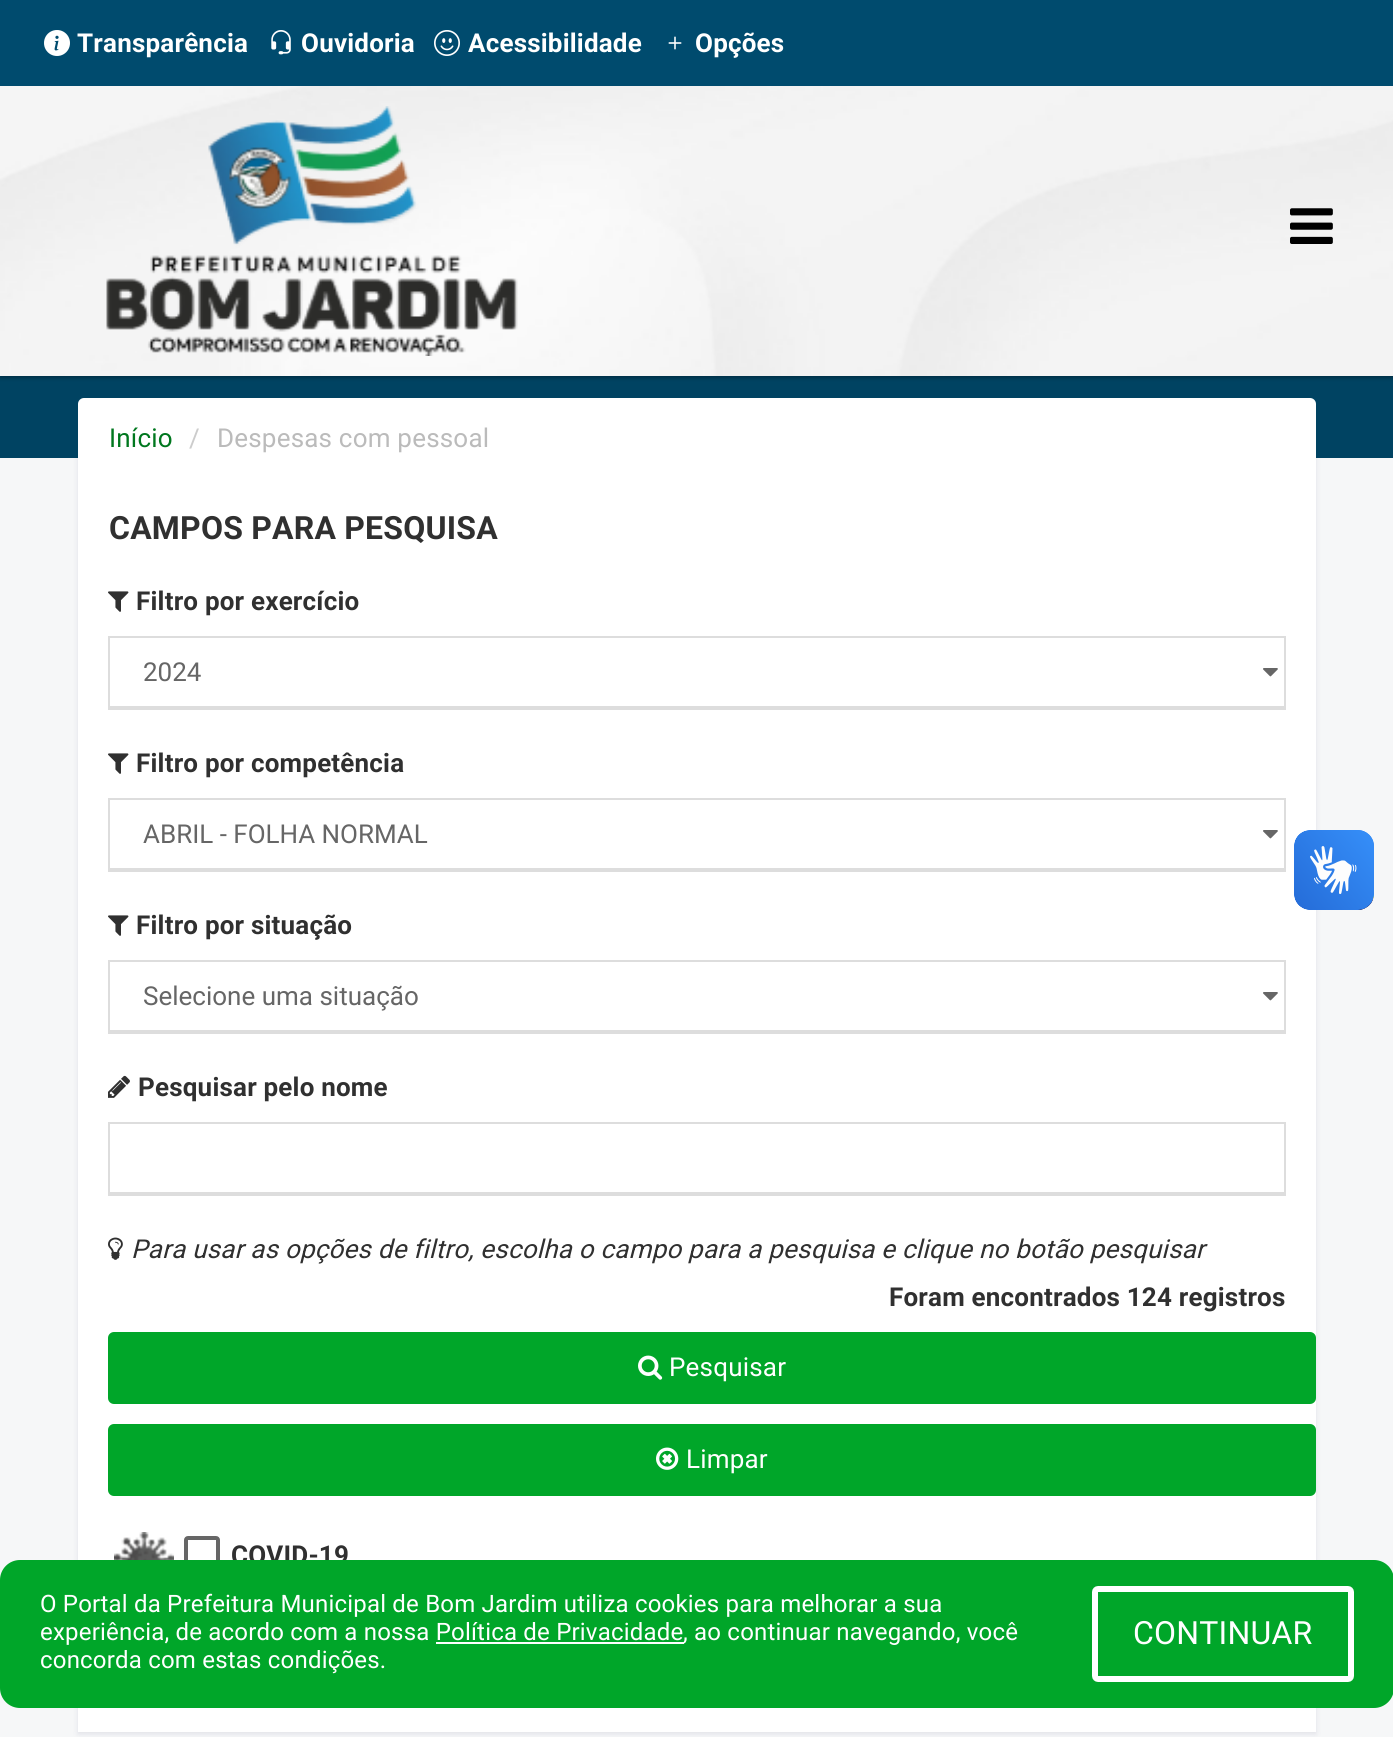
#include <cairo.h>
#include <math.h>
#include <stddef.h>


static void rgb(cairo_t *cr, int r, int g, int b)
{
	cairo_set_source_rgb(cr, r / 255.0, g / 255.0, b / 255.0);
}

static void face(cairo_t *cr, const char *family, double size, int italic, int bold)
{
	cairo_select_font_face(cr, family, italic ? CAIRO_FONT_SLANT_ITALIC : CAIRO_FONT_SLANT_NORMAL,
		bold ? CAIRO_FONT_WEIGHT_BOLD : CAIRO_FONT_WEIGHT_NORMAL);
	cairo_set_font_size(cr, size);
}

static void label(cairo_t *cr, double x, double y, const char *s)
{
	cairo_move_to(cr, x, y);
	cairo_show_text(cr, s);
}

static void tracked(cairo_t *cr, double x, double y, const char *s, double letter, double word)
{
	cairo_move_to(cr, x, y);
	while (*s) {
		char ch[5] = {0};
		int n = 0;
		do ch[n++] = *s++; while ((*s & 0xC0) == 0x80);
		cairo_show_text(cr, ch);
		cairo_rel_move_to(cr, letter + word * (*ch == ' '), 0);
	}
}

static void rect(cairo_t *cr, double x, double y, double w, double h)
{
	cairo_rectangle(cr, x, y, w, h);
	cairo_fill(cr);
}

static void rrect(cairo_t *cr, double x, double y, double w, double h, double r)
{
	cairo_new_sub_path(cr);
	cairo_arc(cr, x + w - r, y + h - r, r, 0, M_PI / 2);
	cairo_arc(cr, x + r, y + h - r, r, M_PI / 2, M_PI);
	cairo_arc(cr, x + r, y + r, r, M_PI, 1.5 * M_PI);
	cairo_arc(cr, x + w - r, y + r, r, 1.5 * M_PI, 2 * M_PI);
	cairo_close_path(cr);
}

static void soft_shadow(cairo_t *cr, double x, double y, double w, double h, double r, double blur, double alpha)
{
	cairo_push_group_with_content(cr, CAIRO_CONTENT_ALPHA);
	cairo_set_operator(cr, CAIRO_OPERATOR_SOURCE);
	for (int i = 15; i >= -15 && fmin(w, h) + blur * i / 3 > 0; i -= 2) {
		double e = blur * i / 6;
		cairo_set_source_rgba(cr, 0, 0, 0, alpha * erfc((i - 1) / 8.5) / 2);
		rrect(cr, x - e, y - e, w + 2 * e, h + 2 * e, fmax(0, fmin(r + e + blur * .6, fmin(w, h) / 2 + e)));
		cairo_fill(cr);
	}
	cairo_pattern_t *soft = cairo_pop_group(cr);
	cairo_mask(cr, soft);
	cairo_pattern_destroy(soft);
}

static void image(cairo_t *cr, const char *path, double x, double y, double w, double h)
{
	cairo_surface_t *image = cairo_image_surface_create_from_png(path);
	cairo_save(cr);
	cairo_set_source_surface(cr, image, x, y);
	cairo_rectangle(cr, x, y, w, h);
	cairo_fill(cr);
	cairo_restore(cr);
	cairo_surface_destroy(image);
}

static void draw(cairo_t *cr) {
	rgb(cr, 246, 247, 248);
	cairo_paint(cr);
	rgb(cr, 3, 0, 71);
	soft_shadow(cr, 78, 400, 1238, 1334, 0, 3, 0.09);
	rgb(cr, 0, 67, 98);
	rect(cr, 0, 376, 1393, 82);
	rgb(cr, 0, 0, 0);
	soft_shadow(cr, 0, 2, 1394, 376, 0, 2, 0.3);
	image(cr, "image0.png", 0, 86, 1393, 290);
	rgb(cr, 0, 75, 110);
	rect(cr, 0, 0, 1393, 86);
	image(cr, "image1.png", 44, 30, 26, 26);
	face(cr, "Roboto", 26, 0, 1);
	rgb(cr, 255, 255, 255);
	tracked(cr, 77, 52, "Transparência", 0.2, 0);
	image(cr, "image2.png", 271, 30, 20, 25);
	tracked(cr, 301, 52, "Ouvidoria", 0.2, 0);
	image(cr, "image3.png", 434, 30, 26, 26);
	tracked(cr, 468, 52, "Acessibilidade", 0.2, 0);
	image(cr, "image4.png", 668, 36, 14, 14);
	tracked(cr, 695, 52, "Opções", 0.2, 0);
	image(cr, "image5.png", 106, 106, 412, 250);
	image(cr, "image6.png", 1290, 208, 43, 36);
	rect(cr, 78, 472, 1238, 1260);
	rrect(cr, 78, 398, 1238, 80, 6);
	cairo_fill(cr);
	face(cr, "Roboto", 26, 0, 0);
	rgb(cr, 0, 119, 30);
	tracked(cr, 109, 447, "Início", 0.2, 0);
	rgb(cr, 204, 204, 204);
	tracked(cr, 189, 447, "/", 0.2, 0);
	rgb(cr, 187, 187, 187);
	tracked(cr, 217, 447, "Despesas com pessoal", 0.2, 0);
	face(cr, "Roboto", 32, 0, 1);
	rgb(cr, 48, 48, 48);
	tracked(cr, 109, 539, "CAMPOS PARA PESQUISA", 0.2, 0);
	image(cr, "image7.png", 108, 591, 21, 21);
	face(cr, "Roboto", 26, 0, 1);
	tracked(cr, 136, 610, "Filtro por exercício", 0.2, 0);
	image(cr, "image8.png", 1263, 668, 15, 9);
	rgb(cr, 221, 221, 221);
	rect(cr, 110, 706, 1174, 2);
	cairo_rectangle(cr, 109, 637, 1176, 72);
	cairo_stroke(cr);
	face(cr, "Roboto", 26, 0, 0);
	rgb(cr, 102, 102, 102);
	label(cr, 143, 681, "2024");
	image(cr, "image7.png", 108, 753, 21, 21);
	face(cr, "Roboto", 26, 0, 1);
	rgb(cr, 48, 48, 48);
	tracked(cr, 136, 772, "Filtro por competência", 0.2, 0);
	image(cr, "image8.png", 1263, 830, 15, 9);
	rgb(cr, 221, 221, 221);
	rect(cr, 110, 868, 1174, 2);
	cairo_rectangle(cr, 109, 799, 1176, 72);
	cairo_stroke(cr);
	face(cr, "Roboto", 26, 0, 0);
	rgb(cr, 102, 102, 102);
	label(cr, 143, 843, "ABRIL - FOLHA NORMAL");
	image(cr, "image7.png", 108, 915, 21, 21);
	face(cr, "Roboto", 26, 0, 1);
	rgb(cr, 48, 48, 48);
	tracked(cr, 136, 934, "Filtro por situação", 0.2, 0);
	image(cr, "image8.png", 1263, 992, 15, 9);
	rgb(cr, 221, 221, 221);
	rect(cr, 110, 1030, 1174, 2);
	cairo_rectangle(cr, 109, 961, 1176, 72);
	cairo_stroke(cr);
	face(cr, "Roboto", 26, 0, 0);
	rgb(cr, 102, 102, 102);
	label(cr, 143, 1005, "Selecione uma situação");
	image(cr, "image9.png", 108, 1075, 22, 23);
	face(cr, "Roboto", 26, 0, 1);
	rgb(cr, 48, 48, 48);
	tracked(cr, 138, 1096, "Pesquisar pelo nome", 0.2, 0);
	rgb(cr, 221, 221, 221);
	rect(cr, 110, 1192, 1174, 2);
	cairo_rectangle(cr, 109, 1123, 1176, 72);
	cairo_stroke(cr);
	image(cr, "image10.png", 108, 1237, 15, 23);
	face(cr, "Roboto", 26, 1, 0);
	rgb(cr, 48, 48, 48);
	tracked(cr, 131, 1258, "Para usar as opções de filtro, escolha o campo para a pesquisa e clique no botão pesquisar", 0.2, 0);
	face(cr, "Roboto", 26, 0, 1);
	tracked(cr, 889, 1306, "Foram encontrados 124 registros", 0.2, 0);
	rgb(cr, 0, 166, 41);
	rrect(cr, 108, 1332, 1208, 72, 6);
	cairo_fill(cr);
	image(cr, "image11.png", 638, 1355, 25, 25);
	face(cr, "Roboto", 26, 0, 0);
	rgb(cr, 255, 255, 255);
	tracked(cr, 669, 1376, "Pesquisar", 0.2, 0);
	rgb(cr, 0, 166, 41);
	rrect(cr, 108, 1424, 1208, 72, 6);
	cairo_fill(cr);
	image(cr, "image12.png", 656, 1447, 23, 23);
	rgb(cr, 255, 255, 255);
	tracked(cr, 686, 1468, "Limpar", 0.2, 0);
	image(cr, "image13.png", 114, 1532, 60, 28);
	rrect(cr, 186, 1538, 32, 32, 2);
	rgb(cr, 102, 102, 102);
	cairo_set_line_width(cr, 4);
	cairo_stroke(cr);
	face(cr, "Roboto", 26, 0, 1);
	rgb(cr, 48, 48, 48);
	tracked(cr, 231, 1564, "COVID-19", 0.2, 0);
	image(cr, "image14.png", 1294, 830, 80, 80);
	image(cr, "image15.png", 1294, 830, 80, 80);
	rgb(cr, 0, 166, 41);
	rrect(cr, 0, 1560, 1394, 148, 20);
	cairo_fill(cr);
	face(cr, "Roboto", 24, 0, 0);
	rgb(cr, 255, 255, 255);
	tracked(cr, 40, 1612, "O Portal da Prefeitura Municipal de Bom Jardim utiliza cookies para melhorar a sua", 0.2, 0);
	tracked(cr, 40, 1640, "experiência, de acordo com a nossa Política de Privacidade", 0.2, 0);
	rect(cr, 436, 1642, 248, 2);
	tracked(cr, 683, 1640, ", ao continuar navegando, você", 0.2, 0);
	tracked(cr, 40, 1668, "concorda com estas condições.", 0.2, 0);
	rrect(cr, 1095, 1589, 256, 90, 3);
	cairo_set_line_width(cr, 6);
	cairo_stroke(cr);
	face(cr, "Roboto", 32, 0, 0);
	tracked(cr, 1133, 1644, "CONTINUAR", 0.2, 0);
}

int main(void) {
	cairo_surface_t *surface = cairo_image_surface_create(CAIRO_FORMAT_RGB24, 1393, 1737);
	cairo_t *cr = cairo_create(surface);
	cairo_font_options_t *options = cairo_font_options_create();
	cairo_font_options_set_hint_metrics(options, CAIRO_HINT_METRICS_OFF);
	cairo_font_options_set_hint_style(options, CAIRO_HINT_STYLE_NONE);
	cairo_set_font_options(cr, options);
	cairo_set_miter_limit(cr, 4);
	draw(cr);
	cairo_surface_write_to_png(surface, "render.png");
	cairo_font_options_destroy(options);
	cairo_destroy(cr);
	cairo_surface_destroy(surface);
	return 0;
}
